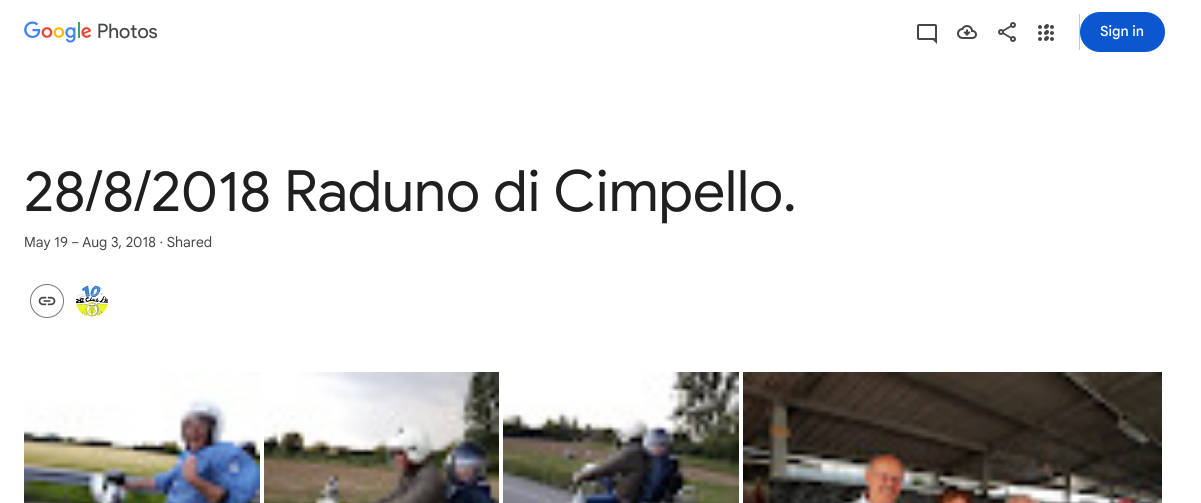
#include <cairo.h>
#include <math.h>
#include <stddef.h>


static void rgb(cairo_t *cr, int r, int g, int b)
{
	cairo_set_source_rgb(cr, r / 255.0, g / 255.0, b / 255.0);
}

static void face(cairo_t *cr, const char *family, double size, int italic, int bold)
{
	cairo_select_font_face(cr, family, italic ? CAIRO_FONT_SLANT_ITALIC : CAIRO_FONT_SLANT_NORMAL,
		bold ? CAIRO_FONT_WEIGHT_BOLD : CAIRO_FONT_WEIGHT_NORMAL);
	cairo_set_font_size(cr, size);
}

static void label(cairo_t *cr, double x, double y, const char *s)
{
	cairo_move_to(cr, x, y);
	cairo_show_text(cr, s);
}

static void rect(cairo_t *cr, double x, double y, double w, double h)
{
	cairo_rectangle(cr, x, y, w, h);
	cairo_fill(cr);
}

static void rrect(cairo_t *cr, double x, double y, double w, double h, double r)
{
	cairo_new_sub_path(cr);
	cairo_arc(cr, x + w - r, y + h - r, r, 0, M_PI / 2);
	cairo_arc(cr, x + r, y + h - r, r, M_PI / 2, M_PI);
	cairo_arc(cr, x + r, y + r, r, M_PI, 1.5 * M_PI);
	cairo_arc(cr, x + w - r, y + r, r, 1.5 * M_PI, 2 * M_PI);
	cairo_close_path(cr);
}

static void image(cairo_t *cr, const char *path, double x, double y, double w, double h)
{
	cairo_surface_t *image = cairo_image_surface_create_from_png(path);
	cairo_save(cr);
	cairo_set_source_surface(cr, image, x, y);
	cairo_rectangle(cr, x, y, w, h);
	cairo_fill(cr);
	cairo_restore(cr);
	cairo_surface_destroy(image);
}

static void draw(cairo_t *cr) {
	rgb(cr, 255, 255, 255);
	cairo_paint(cr);
	image(cr, "image0.png", 24, 21, 68, 22);
	face(cr, "Product Sans", 20, 0, 0);
	rgb(cr, 68, 71, 70);
	label(cr, 97, 38, "Photos");
	image(cr, "image1.png", 917, 24, 20, 20);
	image(cr, "image2.png", 957, 25, 20, 14);
	image(cr, "image3.png", 998, 22, 18, 20);
	image(cr, "image4.png", 1045, 24, 4, 16);
	rgb(cr, 196, 199, 197);
	rect(cr, 1079, 14, 1, 36);
	face(cr, "Google Sans", 57, 0, 0);
	rgb(cr, 31, 31, 31);
	label(cr, 24, 211, "28/8/2018 Raduno di Cimpello.");
	face(cr, "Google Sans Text", 14, 0, 0);
	rgb(cr, 68, 71, 70);
	label(cr, 24, 247, "May 19 – Aug 3, 2018 · Shared");
	cairo_new_path(cr);
	cairo_arc(cr, 47, 301, 16.5, 0, 2 * M_PI);
	rgb(cr, 116, 119, 117);
	cairo_set_line_width(cr, 1);
	cairo_stroke(cr);
	image(cr, "image5.png", 38, 296, 18, 10);
	image(cr, "image6.png", 76, 285, 32, 32);
	image(cr, "image7.png", 24, 372, 236, 131);
	image(cr, "image8.png", 264, 372, 235, 131);
	image(cr, "image9.png", 503, 372, 236, 131);
	image(cr, "image10.png", 743, 372, 419, 131);
	image(cr, "image11.png", 1038, 25, 16, 16);
	rgb(cr, 11, 87, 208);
	rrect(cr, 1080, 12, 85, 40, 20);
	cairo_fill(cr);
	face(cr, "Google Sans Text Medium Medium", 14, 0, 0);
	rgb(cr, 255, 255, 255);
	label(cr, 1100, 36, "Sign in");
}

int main(void) {
	cairo_surface_t *surface = cairo_image_surface_create(CAIRO_FORMAT_RGB24, 1201, 503);
	cairo_t *cr = cairo_create(surface);
	cairo_font_options_t *options = cairo_font_options_create();
	cairo_font_options_set_hint_metrics(options, CAIRO_HINT_METRICS_OFF);
	cairo_font_options_set_hint_style(options, CAIRO_HINT_STYLE_NONE);
	cairo_set_font_options(cr, options);
	cairo_set_miter_limit(cr, 4);
	draw(cr);
	cairo_surface_write_to_png(surface, "render.png");
	cairo_font_options_destroy(options);
	cairo_destroy(cr);
	cairo_surface_destroy(surface);
	return 0;
}
